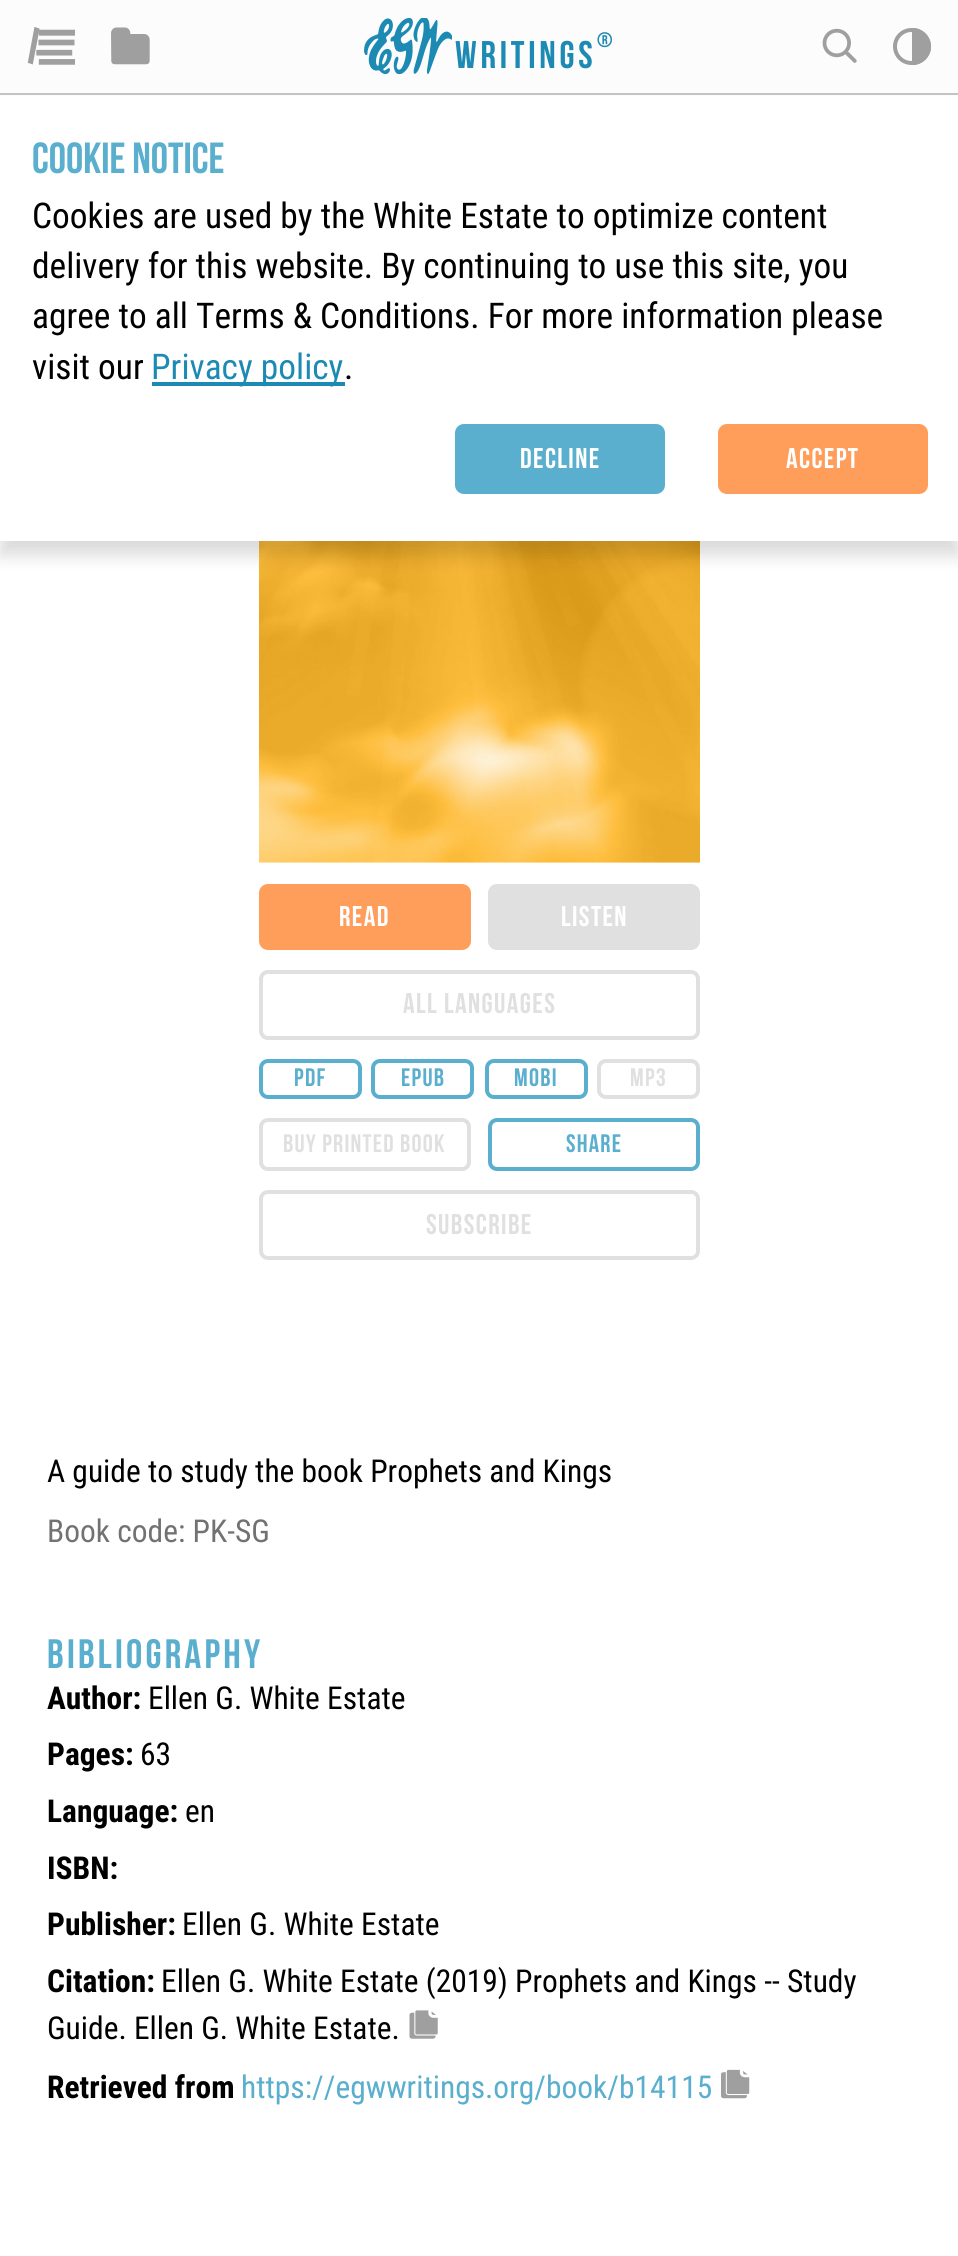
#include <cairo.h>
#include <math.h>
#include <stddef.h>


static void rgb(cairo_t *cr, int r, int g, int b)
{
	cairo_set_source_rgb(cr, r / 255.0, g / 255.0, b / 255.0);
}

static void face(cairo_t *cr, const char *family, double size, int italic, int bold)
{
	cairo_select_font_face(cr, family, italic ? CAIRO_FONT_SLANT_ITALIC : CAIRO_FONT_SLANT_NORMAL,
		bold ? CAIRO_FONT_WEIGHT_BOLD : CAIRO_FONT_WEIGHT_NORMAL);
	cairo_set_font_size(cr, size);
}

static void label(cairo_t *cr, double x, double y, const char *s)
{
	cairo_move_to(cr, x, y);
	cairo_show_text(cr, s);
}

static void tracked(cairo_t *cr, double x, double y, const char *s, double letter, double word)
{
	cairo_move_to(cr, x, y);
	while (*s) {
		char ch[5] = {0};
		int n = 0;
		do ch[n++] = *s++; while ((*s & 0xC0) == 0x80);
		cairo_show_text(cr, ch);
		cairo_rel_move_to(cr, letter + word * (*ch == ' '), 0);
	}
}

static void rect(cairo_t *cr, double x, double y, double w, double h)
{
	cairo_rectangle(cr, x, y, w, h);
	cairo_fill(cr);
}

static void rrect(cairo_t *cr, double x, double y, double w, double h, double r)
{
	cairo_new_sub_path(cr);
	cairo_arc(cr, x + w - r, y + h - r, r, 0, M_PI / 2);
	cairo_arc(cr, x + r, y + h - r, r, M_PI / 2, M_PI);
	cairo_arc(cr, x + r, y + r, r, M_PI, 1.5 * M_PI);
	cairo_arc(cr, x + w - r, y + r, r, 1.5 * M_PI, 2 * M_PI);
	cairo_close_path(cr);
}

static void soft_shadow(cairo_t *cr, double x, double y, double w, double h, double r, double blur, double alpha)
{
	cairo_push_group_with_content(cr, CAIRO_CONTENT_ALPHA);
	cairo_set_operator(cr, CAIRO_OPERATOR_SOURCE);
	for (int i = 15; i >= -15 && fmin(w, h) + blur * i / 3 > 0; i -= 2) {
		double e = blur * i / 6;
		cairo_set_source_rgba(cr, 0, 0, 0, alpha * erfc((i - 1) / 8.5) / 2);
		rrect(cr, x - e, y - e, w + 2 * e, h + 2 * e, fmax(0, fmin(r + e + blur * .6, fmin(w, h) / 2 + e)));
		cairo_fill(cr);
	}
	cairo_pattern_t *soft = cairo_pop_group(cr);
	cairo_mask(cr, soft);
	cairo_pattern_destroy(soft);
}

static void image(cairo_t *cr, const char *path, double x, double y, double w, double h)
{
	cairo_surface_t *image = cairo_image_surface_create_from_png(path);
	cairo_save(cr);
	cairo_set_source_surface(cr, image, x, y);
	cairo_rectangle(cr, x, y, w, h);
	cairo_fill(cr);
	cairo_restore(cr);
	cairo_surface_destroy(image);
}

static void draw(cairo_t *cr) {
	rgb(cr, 255, 255, 255);
	cairo_paint(cr);
	rgb(cr, 252, 252, 252);
	rect(cr, 0, 0, 958, 93);
	rgb(cr, 196, 196, 196);
	rect(cr, 0, 93, 958, 2);
	image(cr, "image0.png", 27, 27, 48, 38);
	image(cr, "image1.png", 111, 27, 39, 38);
	image(cr, "image2.png", 364, 18, 88, 57);
	face(cr, "Bebas Neue", 38.5, 0, 1);
	rgb(cr, 28, 138, 179);
	tracked(cr, 455, 68, "writings", 3.75, 0);
	face(cr, "Bebas Neue", 21, 0, 1);
	tracked(cr, 597, 47, "®", 2, 0);
	image(cr, "image3.png", 822, 28, 35, 35);
	rrect(cr, 895, 30, 34, 33, 16.5);
	rgb(cr, 159, 159, 159);
	cairo_set_line_width(cr, 4);
	cairo_stroke(cr);
	cairo_new_path(cr);
	cairo_move_to(cr, 912, 28);
	cairo_line_to(cr, 912.5, 28);
	cairo_curve_to(cr, 922.5, 28, 931, 36.5, 931, 46.5);
	cairo_curve_to(cr, 931, 56.5, 922.5, 65, 912.5, 65);
	cairo_line_to(cr, 912, 65);
	cairo_close_path(cr);
	cairo_fill(cr);
	image(cr, "image4.png", 259, 541, 441, 322);
	rgb(cr, 0, 0, 0);
	soft_shadow(cr, 0, 109, 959, 446, 0, 9, 0.15);
	rgb(cr, 255, 255, 255);
	rect(cr, 0, 96, 958, 445);
	face(cr, "Bebas Neue", 43.5, 0, 1);
	rgb(cr, 90, 174, 206);
	label(cr, 32, 173, "Cookie Notice");
	face(cr, "Roboto Condensed", 35.4, 0, 0);
	rgb(cr, 0, 0, 0);
	label(cr, 32, 228, "Cookies are used by the White Estate to optimize content");
	label(cr, 32, 278, "delivery for this website. By continuing to use this site, you");
	label(cr, 32, 328, "agree to all Terms & Conditions. For more information please");
	label(cr, 32, 379, "visit our");
	rgb(cr, 28, 138, 179);
	rect(cr, 152, 382, 193, 4);
	label(cr, 151, 379, "Privacy policy");
	rgb(cr, 0, 0, 0);
	label(cr, 344, 379, ".");
	rgb(cr, 90, 174, 206);
	rrect(cr, 456, 425, 208, 68, 8);
	cairo_fill_preserve(cr);
	cairo_set_line_width(cr, 2);
	cairo_stroke(cr);
	face(cr, "Bebas Neue", 28.5, 0, 1);
	rgb(cr, 255, 255, 255);
	tracked(cr, 520, 468, "Decline", 1.4, 0);
	rgb(cr, 255, 157, 91);
	rrect(cr, 719, 425, 208, 68, 8);
	cairo_fill_preserve(cr);
	cairo_stroke(cr);
	rgb(cr, 255, 255, 255);
	tracked(cr, 786, 468, "Accept", 1.4, 0);
	rgb(cr, 255, 157, 91);
	rrect(cr, 260, 885, 210, 64, 8);
	cairo_fill_preserve(cr);
	cairo_stroke(cr);
	rgb(cr, 255, 255, 255);
	tracked(cr, 339, 926, "Read", 1.4, 0);
	rgb(cr, 224, 224, 224);
	rrect(cr, 489, 885, 210, 64, 8);
	cairo_fill_preserve(cr);
	cairo_stroke(cr);
	rgb(cr, 255, 255, 255);
	tracked(cr, 561, 926, "Listen", 1.4, 0);
	rrect(cr, 261, 972, 437, 66, 7);
	rgb(cr, 224, 224, 224);
	cairo_set_line_width(cr, 4);
	cairo_stroke(cr);
	tracked(cr, 403, 1013, "All languages", 1.4, 0);
	rrect(cr, 261, 1061, 99, 36, 7);
	rgb(cr, 90, 174, 206);
	cairo_stroke(cr);
	face(cr, "Bebas Neue", 25.25, 0, 1);
	tracked(cr, 294, 1086, "PDF", 1.25, 0);
	rrect(cr, 373, 1061, 99, 36, 7);
	cairo_stroke(cr);
	tracked(cr, 401, 1086, "ePub", 1.25, 0);
	rrect(cr, 487, 1061, 99, 36, 7);
	cairo_stroke(cr);
	tracked(cr, 514, 1086, "mobi", 1.25, 0);
	rrect(cr, 599, 1061, 99, 36, 7);
	rgb(cr, 224, 224, 224);
	cairo_stroke(cr);
	tracked(cr, 630, 1086, "MP3", 1.25, 0);
	rrect(cr, 261, 1120, 208, 49, 7);
	cairo_stroke(cr);
	tracked(cr, 283, 1152, "buy printed book", 1.25, 0);
	rrect(cr, 490, 1120, 208, 49, 7);
	rgb(cr, 90, 174, 206);
	cairo_stroke(cr);
	tracked(cr, 566, 1152, "Share", 1.25, 0);
	rrect(cr, 261, 1192, 437, 66, 7);
	rgb(cr, 224, 224, 224);
	cairo_stroke(cr);
	face(cr, "Bebas Neue", 28.5, 0, 1);
	tracked(cr, 426, 1234, "Subscribe", 1.4, 0);
	face(cr, "Roboto Condensed", 31.5, 0, 0);
	rgb(cr, 0, 0, 0);
	label(cr, 47, 1482, "A guide to study the book Prophets and Kings");
	rgb(cr, 114, 114, 114);
	label(cr, 47, 1542, "Book code: PK-SG");
	face(cr, "Bebas Neue", 41, 0, 1);
	rgb(cr, 90, 174, 206);
	tracked(cr, 47, 1668, "BIBLIOGRAPHY", 3.25, 0);
	face(cr, "Roboto Condensed", 31.5, 0, 1);
	rgb(cr, 0, 0, 0);
	label(cr, 47, 1709, "Author:");
	face(cr, "Roboto Condensed", 31.5, 0, 0);
	label(cr, 148, 1709, "Ellen G. White Estate");
	face(cr, "Roboto Condensed", 31.5, 0, 1);
	label(cr, 47, 1765, "Pages:");
	face(cr, "Roboto Condensed", 31.5, 0, 0);
	label(cr, 140, 1765, "63");
	face(cr, "Roboto Condensed", 31.5, 0, 1);
	label(cr, 47, 1822, "Language:");
	face(cr, "Roboto Condensed", 31.5, 0, 0);
	label(cr, 185, 1822, "en");
	face(cr, "Roboto Condensed", 31.5, 0, 1);
	label(cr, 47, 1879, "ISBN:");
	label(cr, 47, 1935, "Publisher:");
	face(cr, "Roboto Condensed", 31.5, 0, 0);
	label(cr, 182, 1935, "Ellen G. White Estate");
	face(cr, "Roboto Condensed", 31.5, 0, 1);
	label(cr, 47, 1992, "Citation:");
	face(cr, "Roboto Condensed", 31.5, 0, 0);
	label(cr, 161, 1992, "Ellen G. White Estate (2019) Prophets and Kings -- Study");
	label(cr, 47, 2039, "Guide. Ellen G. White Estate.");
	image(cr, "image5.png", 409, 2010, 29, 29);
	face(cr, "Roboto Condensed", 31.5, 0, 1);
	label(cr, 47, 2098, "Retrieved from");
	face(cr, "Roboto Condensed", 31.5, 0, 0);
	rgb(cr, 90, 174, 206);
	label(cr, 241, 2098, "https://egwwritings.org/book/b14115");
	image(cr, "image6.png", 721, 2069, 29, 30);
}

int main(void) {
	cairo_surface_t *surface = cairo_image_surface_create(CAIRO_FORMAT_RGB24, 958, 2256);
	cairo_t *cr = cairo_create(surface);
	cairo_font_options_t *options = cairo_font_options_create();
	cairo_font_options_set_hint_metrics(options, CAIRO_HINT_METRICS_OFF);
	cairo_font_options_set_hint_style(options, CAIRO_HINT_STYLE_NONE);
	cairo_set_font_options(cr, options);
	cairo_set_miter_limit(cr, 4);
	draw(cr);
	cairo_surface_write_to_png(surface, "render.png");
	cairo_font_options_destroy(options);
	cairo_destroy(cr);
	cairo_surface_destroy(surface);
	return 0;
}
